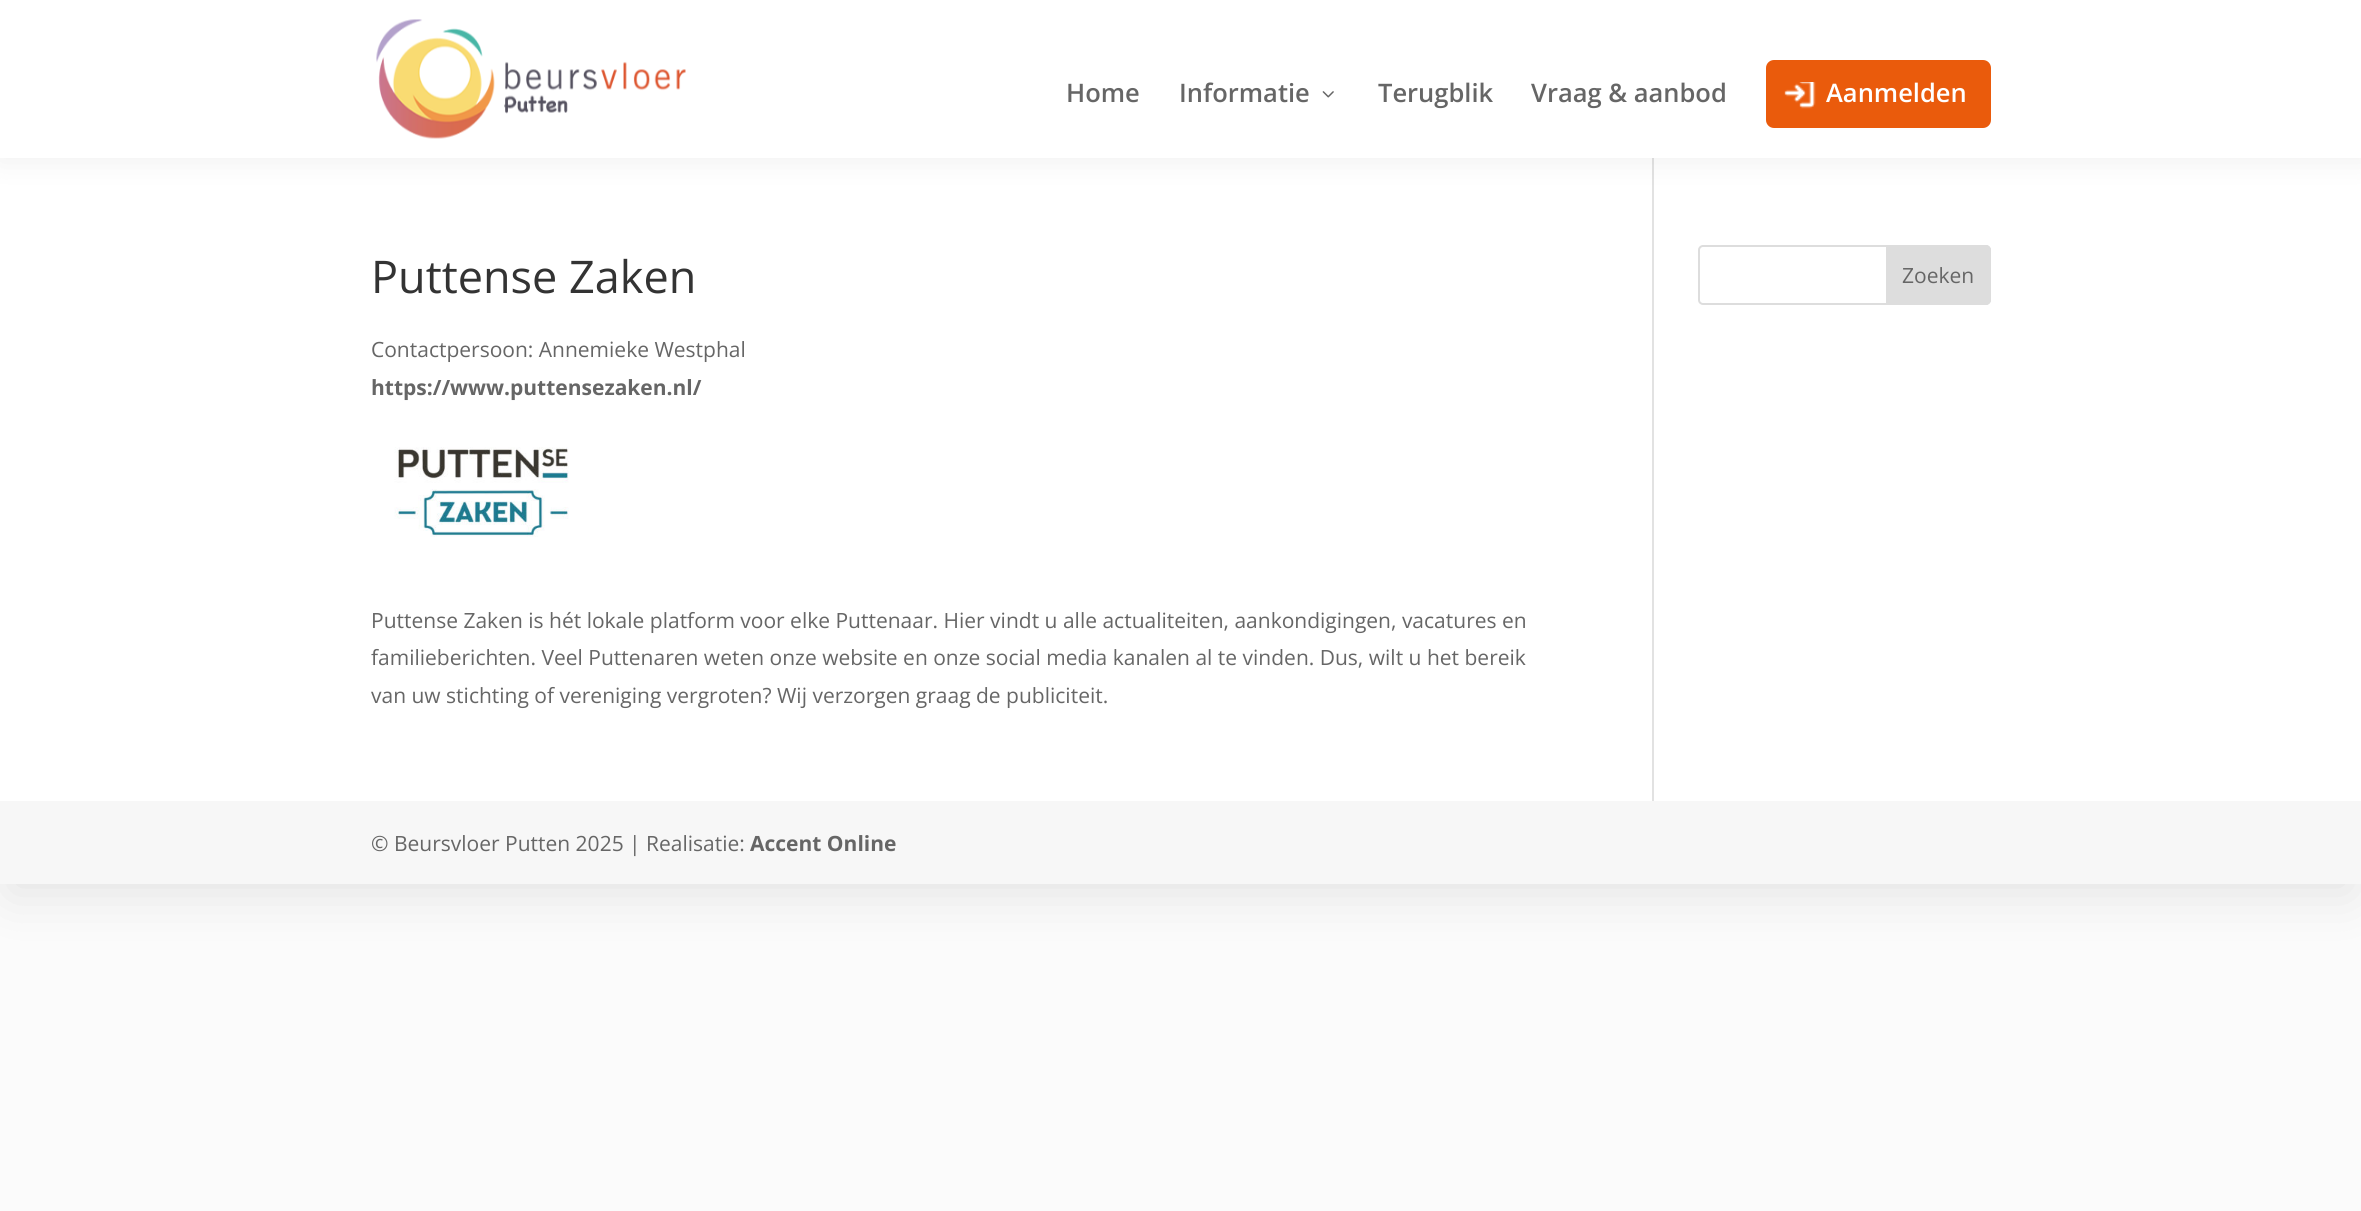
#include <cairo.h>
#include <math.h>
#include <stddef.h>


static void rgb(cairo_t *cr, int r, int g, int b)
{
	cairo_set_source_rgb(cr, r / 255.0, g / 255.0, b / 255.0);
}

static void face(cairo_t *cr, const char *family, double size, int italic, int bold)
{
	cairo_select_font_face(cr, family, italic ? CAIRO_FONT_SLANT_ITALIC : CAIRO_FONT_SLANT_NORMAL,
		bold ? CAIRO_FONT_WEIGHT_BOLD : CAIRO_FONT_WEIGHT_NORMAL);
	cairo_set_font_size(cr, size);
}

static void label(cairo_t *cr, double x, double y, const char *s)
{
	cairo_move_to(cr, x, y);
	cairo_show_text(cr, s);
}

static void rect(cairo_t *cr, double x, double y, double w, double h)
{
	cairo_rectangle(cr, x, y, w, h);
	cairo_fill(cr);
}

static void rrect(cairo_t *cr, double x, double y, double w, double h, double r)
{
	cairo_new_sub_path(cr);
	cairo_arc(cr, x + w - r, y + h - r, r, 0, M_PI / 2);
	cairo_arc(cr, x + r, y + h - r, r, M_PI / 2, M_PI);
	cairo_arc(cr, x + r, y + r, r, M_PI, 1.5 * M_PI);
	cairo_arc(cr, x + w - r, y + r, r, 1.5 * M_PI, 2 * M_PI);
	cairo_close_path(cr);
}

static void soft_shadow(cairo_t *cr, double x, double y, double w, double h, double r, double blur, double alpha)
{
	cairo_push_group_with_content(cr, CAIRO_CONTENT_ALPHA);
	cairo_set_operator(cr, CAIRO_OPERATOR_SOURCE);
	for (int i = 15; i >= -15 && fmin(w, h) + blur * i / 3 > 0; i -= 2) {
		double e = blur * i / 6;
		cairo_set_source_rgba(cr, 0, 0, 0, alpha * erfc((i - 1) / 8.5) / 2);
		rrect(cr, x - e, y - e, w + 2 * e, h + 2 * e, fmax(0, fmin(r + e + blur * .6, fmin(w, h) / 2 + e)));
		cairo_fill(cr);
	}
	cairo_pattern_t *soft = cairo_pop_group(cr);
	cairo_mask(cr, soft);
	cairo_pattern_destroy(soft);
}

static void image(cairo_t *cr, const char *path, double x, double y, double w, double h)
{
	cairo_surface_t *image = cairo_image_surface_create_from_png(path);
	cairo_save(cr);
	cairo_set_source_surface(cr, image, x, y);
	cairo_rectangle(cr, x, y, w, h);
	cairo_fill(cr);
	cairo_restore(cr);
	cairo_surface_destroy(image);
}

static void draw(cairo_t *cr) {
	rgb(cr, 251, 251, 251);
	cairo_paint(cr);
	rgb(cr, 0, 0, 0);
	soft_shadow(cr, 9, 27, 2343, 866, 0, 26, 0.1);
	rgb(cr, 255, 255, 255);
	rect(cr, 0, 158, 2361, 643);
	rgb(cr, 226, 226, 226);
	rect(cr, 1652, 158, 2, 643);
	rgb(cr, 0, 0, 0);
	soft_shadow(cr, -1, -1, 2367, 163, 0, 15, 0.06);
	rgb(cr, 255, 255, 255);
	rect(cr, 0, 0, 2361, 158);
	image(cr, "image0.png", 376, 19, 310, 120);
	face(cr, "Open Sans SemiBold", 25.5, 0, 0);
	rgb(cr, 102, 102, 102);
	label(cr, 1066, 102, "Home");
	label(cr, 1179, 102, "Informatie");
	image(cr, "image1.png", 1322, 91, 12, 7);
	label(cr, 1378, 102, "Terugblik");
	label(cr, 1531, 102, "Vraag & aanbod");
	rgb(cr, 234, 91, 12);
	rrect(cr, 1766, 60, 225, 68, 8);
	cairo_fill(cr);
	image(cr, "image2.png", 1784, 82, 32, 27);
	rgb(cr, 255, 255, 255);
	label(cr, 1826, 102, "Aanmelden");
	face(cr, "Open Sans", 45, 0, 0);
	rgb(cr, 51, 51, 51);
	label(cr, 371, 293, "Puttense Zaken");
	face(cr, "Open Sans", 21, 0, 0);
	rgb(cr, 102, 102, 102);
	label(cr, 371, 357, "Contactpersoon: Annemieke Westphal");
	face(cr, "Open Sans", 21, 0, 1);
	label(cr, 371, 395, "https://www.puttensezaken.nl/");
	image(cr, "image3.png", 394, 447, 175, 90);
	face(cr, "Open Sans", 21, 0, 0);
	label(cr, 371, 628, "Puttense Zaken is hét lokale platform voor elke Puttenaar. Hier vindt u alle actualiteiten, aankondigingen, vacatures en");
	label(cr, 371, 665, "familieberichten. Veel Puttenaren weten onze website en onze social media kanalen al te vinden. Dus, wilt u het bereik");
	label(cr, 371, 703, "van uw stichting of vereniging vergroten? Wij verzorgen graag de publiciteit.");
	rrect(cr, 1699, 246, 291, 58, 4);
	rgb(cr, 221, 221, 221);
	cairo_stroke(cr);
	cairo_new_path(cr);
	cairo_move_to(cr, 1887, 246);
	cairo_line_to(cr, 1986, 246);
	cairo_curve_to(cr, 1988, 246, 1990, 248, 1990, 250);
	cairo_line_to(cr, 1990, 300);
	cairo_curve_to(cr, 1990, 302, 1988, 304, 1986, 304);
	cairo_line_to(cr, 1887, 304);
	cairo_close_path(cr);
	cairo_fill_preserve(cr);
	cairo_stroke(cr);
	rgb(cr, 102, 102, 102);
	label(cr, 1902, 283, "Zoeken");
	rgb(cr, 247, 247, 247);
	rect(cr, 0, 801, 2361, 83);
	rgb(cr, 102, 102, 102);
	label(cr, 371, 851, "© Beursvloer Putten 2025 | Realisatie:");
	face(cr, "Open Sans", 21, 0, 1);
	label(cr, 750, 851, "Accent Online");
}

int main(void) {
	cairo_surface_t *surface = cairo_image_surface_create(CAIRO_FORMAT_RGB24, 2361, 1211);
	cairo_t *cr = cairo_create(surface);
	cairo_font_options_t *options = cairo_font_options_create();
	cairo_font_options_set_hint_metrics(options, CAIRO_HINT_METRICS_OFF);
	cairo_font_options_set_hint_style(options, CAIRO_HINT_STYLE_NONE);
	cairo_set_font_options(cr, options);
	cairo_set_miter_limit(cr, 4);
	draw(cr);
	cairo_surface_write_to_png(surface, "render.png");
	cairo_font_options_destroy(options);
	cairo_destroy(cr);
	cairo_surface_destroy(surface);
	return 0;
}
